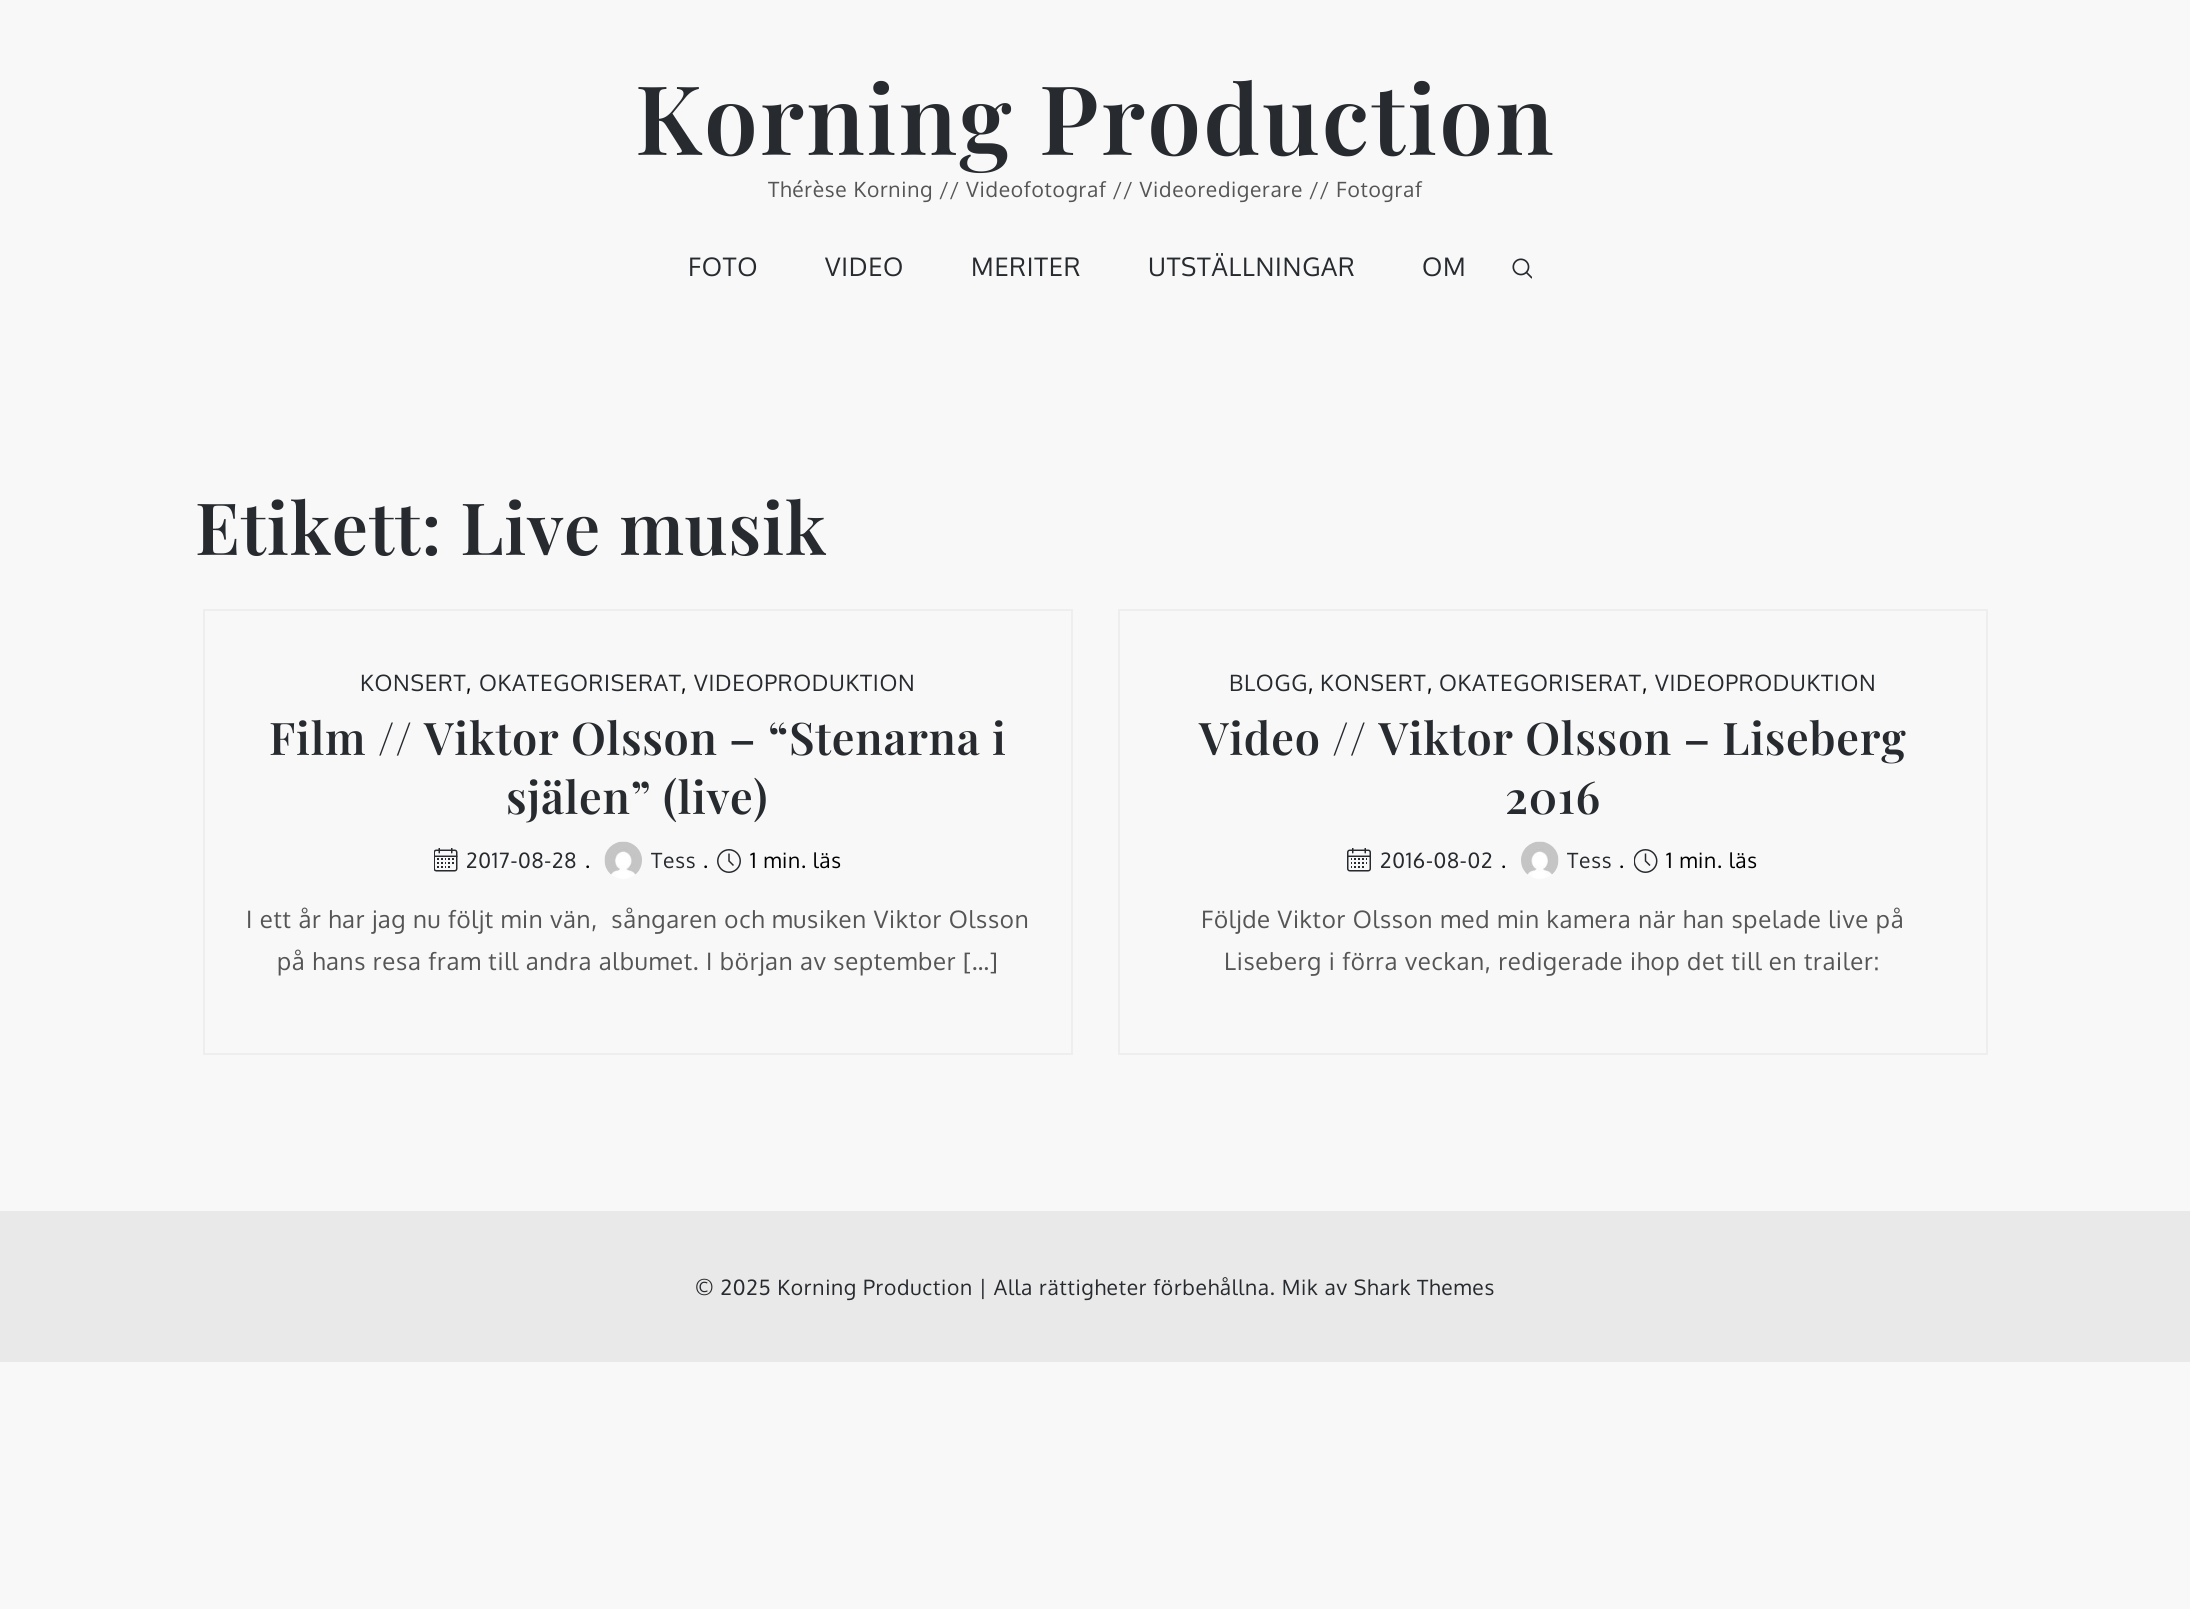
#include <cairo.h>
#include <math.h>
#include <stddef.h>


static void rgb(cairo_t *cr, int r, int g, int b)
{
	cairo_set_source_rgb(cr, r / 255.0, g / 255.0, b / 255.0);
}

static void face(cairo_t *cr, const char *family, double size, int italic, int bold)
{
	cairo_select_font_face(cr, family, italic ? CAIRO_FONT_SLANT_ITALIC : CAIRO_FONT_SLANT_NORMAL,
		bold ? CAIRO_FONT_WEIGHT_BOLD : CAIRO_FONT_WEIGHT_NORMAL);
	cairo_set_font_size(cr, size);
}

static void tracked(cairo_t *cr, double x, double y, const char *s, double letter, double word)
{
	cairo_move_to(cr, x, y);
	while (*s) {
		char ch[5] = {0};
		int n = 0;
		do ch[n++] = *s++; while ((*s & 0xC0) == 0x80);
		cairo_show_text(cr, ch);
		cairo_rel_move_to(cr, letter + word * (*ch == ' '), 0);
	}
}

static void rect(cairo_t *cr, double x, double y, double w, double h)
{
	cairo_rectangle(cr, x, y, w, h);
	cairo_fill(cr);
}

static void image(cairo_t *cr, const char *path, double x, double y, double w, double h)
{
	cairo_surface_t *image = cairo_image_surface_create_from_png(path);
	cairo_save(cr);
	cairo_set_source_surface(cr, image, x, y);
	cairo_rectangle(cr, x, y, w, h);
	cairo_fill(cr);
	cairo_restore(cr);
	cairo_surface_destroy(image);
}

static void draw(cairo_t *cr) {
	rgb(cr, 248, 248, 248);
	cairo_paint(cr);
	face(cr, "Playfair Display SemiBold", 96, 0, 0);
	rgb(cr, 39, 43, 47);
	tracked(cr, 635, 155, "Korning Production", 2.25, 0);
	face(cr, "Oxygen", 21, 0, 0);
	rgb(cr, 85, 85, 85);
	tracked(cr, 768, 197, "Thérèse Korning // Videofotograf // Videoredigerare // Fotograf", 0.75, 0);
	face(cr, "Oxygen", 25.5, 0, 0);
	rgb(cr, 39, 43, 47);
	tracked(cr, 688, 276, "FOTO", 0.75, 0);
	tracked(cr, 825, 276, "VIDEO", 0.75, 0);
	tracked(cr, 971, 276, "MERITER", 0.75, 0);
	tracked(cr, 1148, 276, "UTSTÄLLNINGAR", 0.75, 0);
	tracked(cr, 1422, 276, "OM", 0.75, 0);
	image(cr, "image0.png", 1512, 258, 20, 21);
	face(cr, "Playfair Display SemiBold", 72, 0, 0);
	tracked(cr, 195, 555, "Etikett: Live musik", 0.75, 0);
	cairo_rectangle(cr, 204, 610, 868, 444);
	rgb(cr, 238, 238, 238);
	cairo_stroke(cr);
	face(cr, "Oxygen", 22.5, 0, 0);
	rgb(cr, 39, 43, 47);
	tracked(cr, 360, 691, "KONSERT", 0.75, 0);
	rgb(cr, 0, 0, 0);
	tracked(cr, 466, 691, ",", 0.75, 0);
	rgb(cr, 39, 43, 47);
	tracked(cr, 479, 691, "OKATEGORISERAT", 0.75, 0);
	rgb(cr, 0, 0, 0);
	tracked(cr, 681, 691, ",", 0.75, 0);
	rgb(cr, 39, 43, 47);
	tracked(cr, 694, 691, "VIDEOPRODUKTION", 0.75, 0);
	face(cr, "Playfair Display SemiBold", 45, 0, 0);
	tracked(cr, 269, 755, "Film // Viktor Olsson – “Stenarna i", 0.75, 0);
	tracked(cr, 506, 814, "själen” (live)", 0.75, 0);
	image(cr, "image1.png", 434, 848, 24, 24);
	face(cr, "Oxygen", 21, 0, 0);
	tracked(cr, 466, 868, "2017-08-28", 0.75, 0);
	rgb(cr, 0, 0, 0);
	tracked(cr, 585, 868, ".", 0.75, 0);
	image(cr, "image2.png", 604, 841, 38, 38);
	rgb(cr, 39, 43, 47);
	tracked(cr, 651, 868, "Tess", 0.75, 0);
	rgb(cr, 0, 0, 0);
	tracked(cr, 703, 868, ".", 0.75, 0);
	image(cr, "image3.png", 717, 849, 24, 24);
	tracked(cr, 750, 868, "1 min. läs", 0.75, 0);
	face(cr, "Oxygen", 24, 0, 0);
	rgb(cr, 85, 85, 85);
	tracked(cr, 246, 928, "I ett år har jag nu följt min vän,  sångaren och musiken Viktor Olsson", 0.75, 0);
	tracked(cr, 277, 970, "på hans resa fram till andra albumet. I början av september […]", 0.75, 0);
	cairo_rectangle(cr, 1119, 610, 868, 444);
	rgb(cr, 238, 238, 238);
	cairo_stroke(cr);
	face(cr, "Oxygen", 22.5, 0, 0);
	rgb(cr, 39, 43, 47);
	tracked(cr, 1229, 691, "BLOGG", 0.75, 0);
	rgb(cr, 0, 0, 0);
	tracked(cr, 1308, 691, ",", 0.75, 0);
	rgb(cr, 39, 43, 47);
	tracked(cr, 1320, 691, "KONSERT", 0.75, 0);
	rgb(cr, 0, 0, 0);
	tracked(cr, 1427, 691, ",", 0.75, 0);
	rgb(cr, 39, 43, 47);
	tracked(cr, 1439, 691, "OKATEGORISERAT", 0.75, 0);
	rgb(cr, 0, 0, 0);
	tracked(cr, 1642, 691, ",", 0.75, 0);
	rgb(cr, 39, 43, 47);
	tracked(cr, 1655, 691, "VIDEOPRODUKTION", 0.75, 0);
	face(cr, "Playfair Display SemiBold", 45, 0, 0);
	tracked(cr, 1199, 755, "Video // Viktor Olsson – Liseberg", 0.75, 0);
	tracked(cr, 1505, 814, "2016", 0.75, 0);
	image(cr, "image4.png", 1347, 848, 24, 24);
	face(cr, "Oxygen", 21, 0, 0);
	tracked(cr, 1380, 868, "2016-08-02", 0.75, 0);
	rgb(cr, 0, 0, 0);
	tracked(cr, 1501, 868, ".", 0.75, 0);
	image(cr, "image5.png", 1521, 841, 38, 38);
	rgb(cr, 39, 43, 47);
	tracked(cr, 1567, 868, "Tess", 0.75, 0);
	rgb(cr, 0, 0, 0);
	tracked(cr, 1619, 868, ".", 0.75, 0);
	image(cr, "image6.png", 1634, 849, 24, 24);
	tracked(cr, 1666, 868, "1 min. läs", 0.75, 0);
	face(cr, "Oxygen", 24, 0, 0);
	rgb(cr, 85, 85, 85);
	tracked(cr, 1201, 928, "Följde Viktor Olsson med min kamera när han spelade live på", 0.75, 0);
	tracked(cr, 1224, 970, "Liseberg i förra veckan, redigerade ihop det till en trailer:", 0.75, 0);
	rgb(cr, 233, 233, 233);
	rect(cr, 0, 1211, 2190, 151);
	face(cr, "Oxygen", 21, 0, 0);
	rgb(cr, 39, 43, 47);
	tracked(cr, 695, 1295, "© 2025 Korning Production | Alla rättigheter förbehållna. Mik av Shark Themes", 0.75, 0);
}

int main(void) {
	cairo_surface_t *surface = cairo_image_surface_create(CAIRO_FORMAT_RGB24, 2190, 1609);
	cairo_t *cr = cairo_create(surface);
	cairo_font_options_t *options = cairo_font_options_create();
	cairo_font_options_set_hint_metrics(options, CAIRO_HINT_METRICS_OFF);
	cairo_font_options_set_hint_style(options, CAIRO_HINT_STYLE_NONE);
	cairo_set_font_options(cr, options);
	cairo_set_miter_limit(cr, 4);
	draw(cr);
	cairo_surface_write_to_png(surface, "render.png");
	cairo_font_options_destroy(options);
	cairo_destroy(cr);
	cairo_surface_destroy(surface);
	return 0;
}
